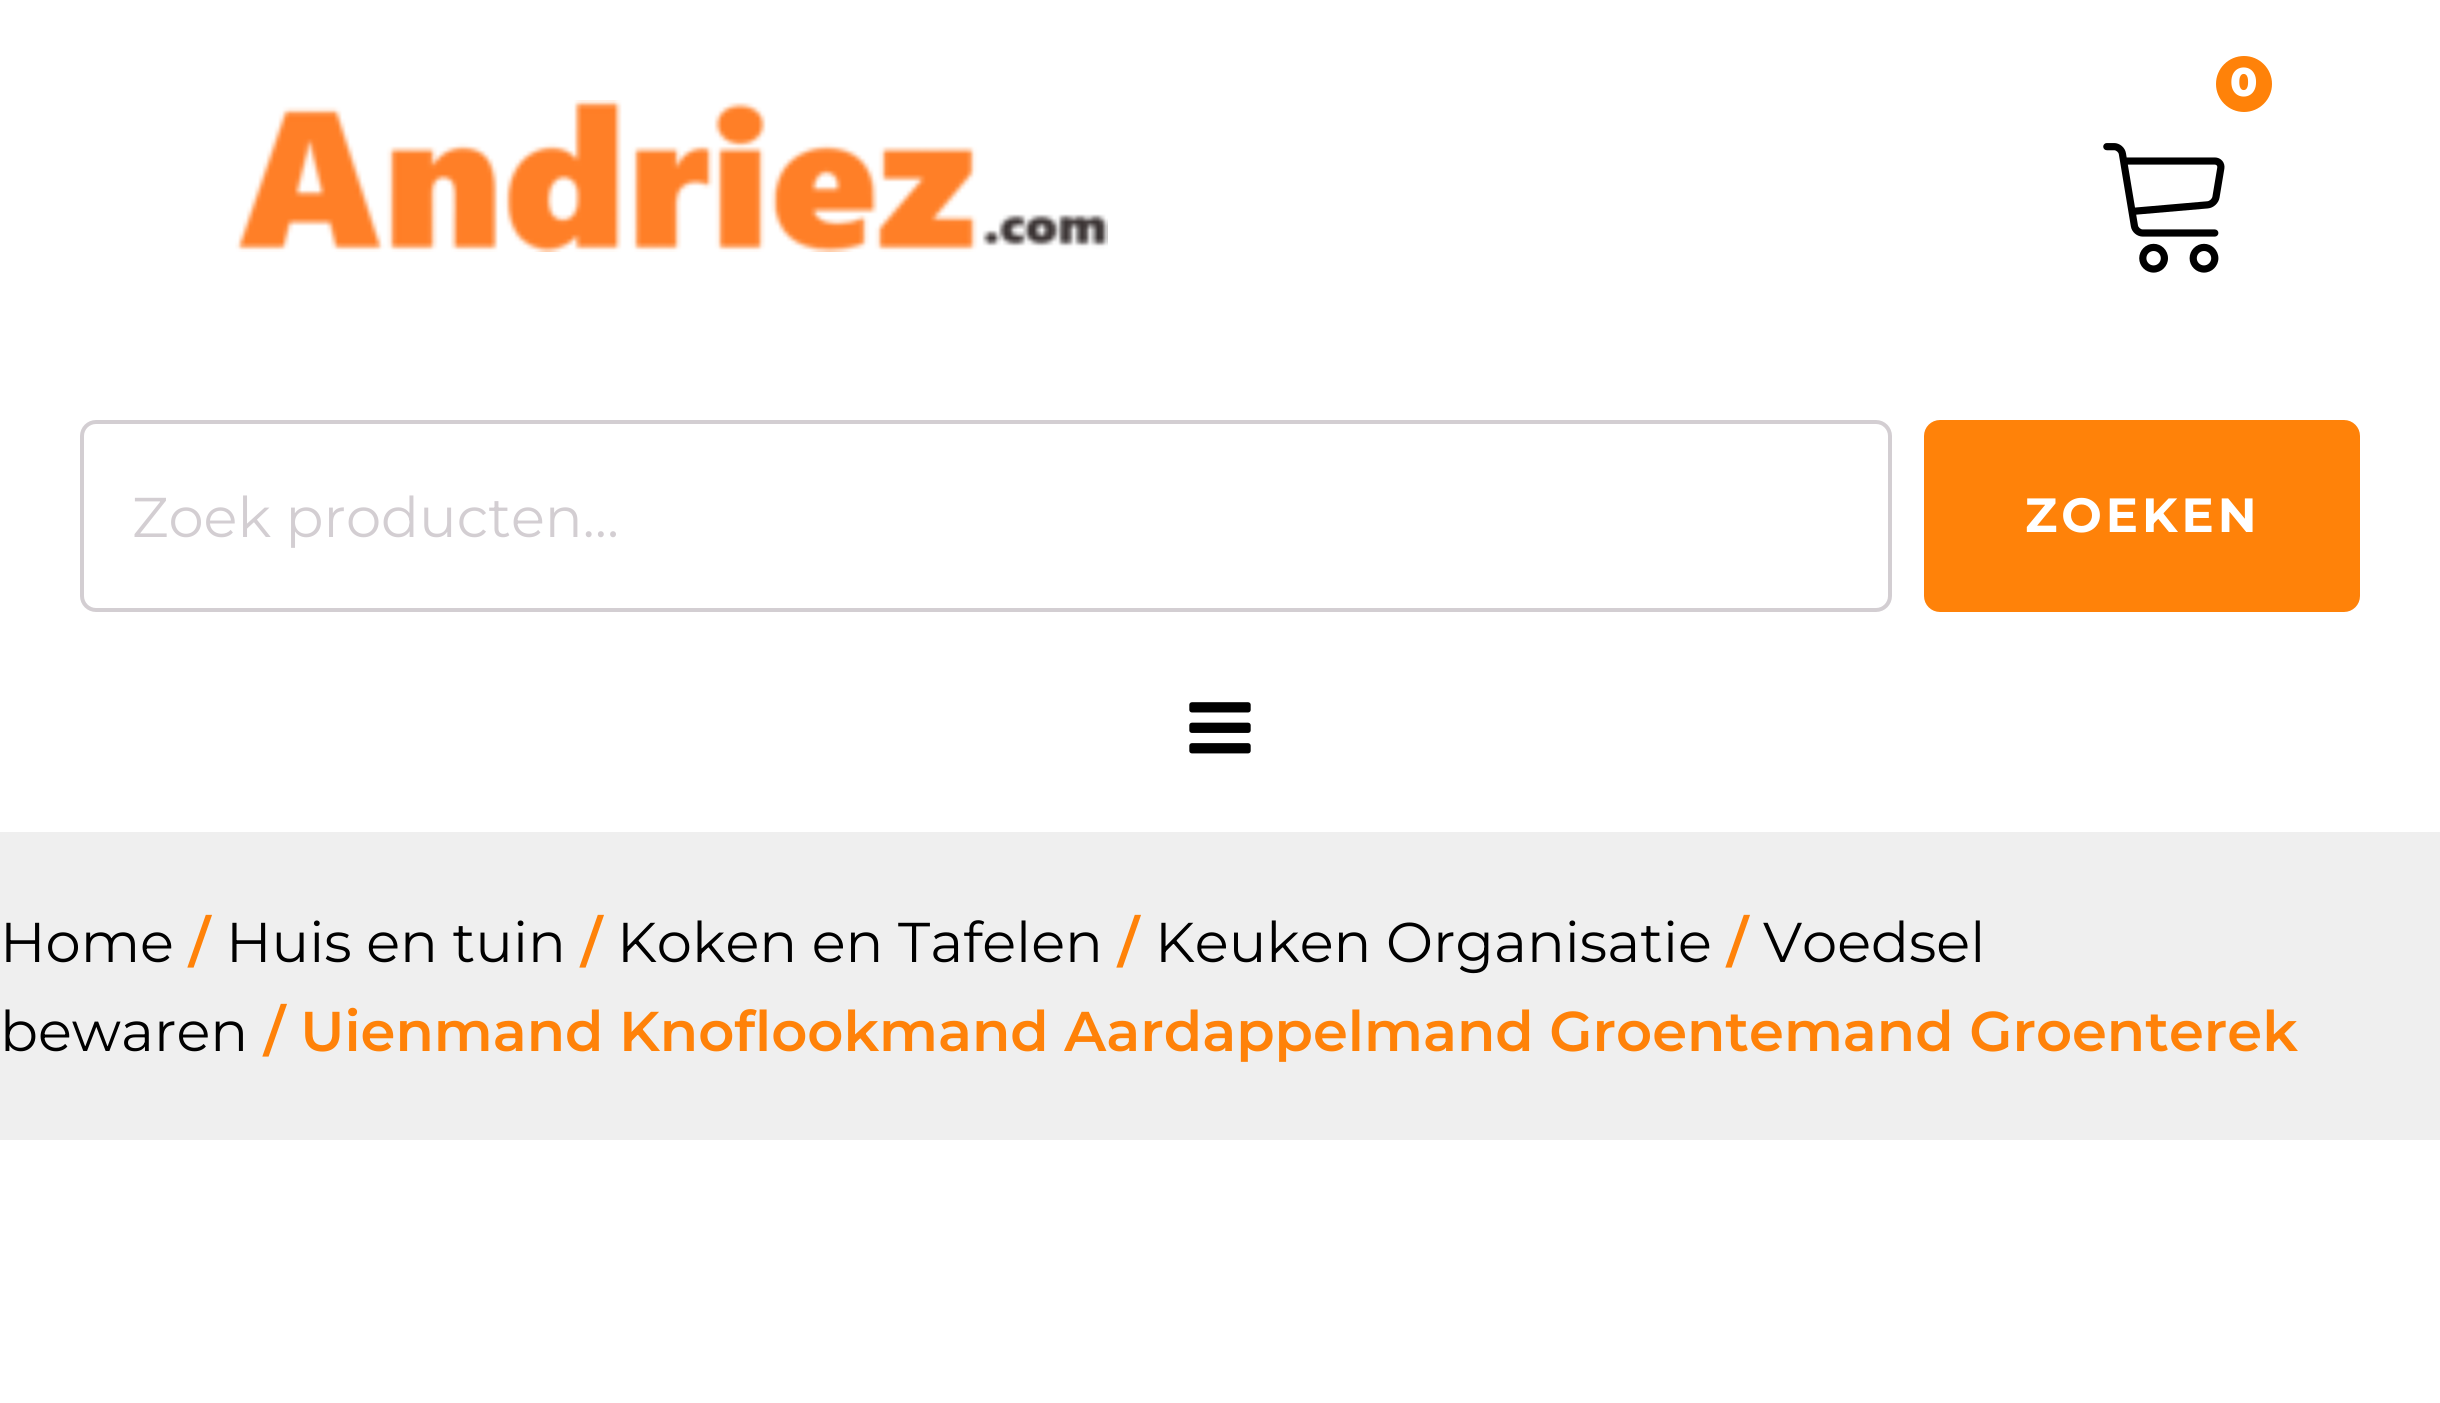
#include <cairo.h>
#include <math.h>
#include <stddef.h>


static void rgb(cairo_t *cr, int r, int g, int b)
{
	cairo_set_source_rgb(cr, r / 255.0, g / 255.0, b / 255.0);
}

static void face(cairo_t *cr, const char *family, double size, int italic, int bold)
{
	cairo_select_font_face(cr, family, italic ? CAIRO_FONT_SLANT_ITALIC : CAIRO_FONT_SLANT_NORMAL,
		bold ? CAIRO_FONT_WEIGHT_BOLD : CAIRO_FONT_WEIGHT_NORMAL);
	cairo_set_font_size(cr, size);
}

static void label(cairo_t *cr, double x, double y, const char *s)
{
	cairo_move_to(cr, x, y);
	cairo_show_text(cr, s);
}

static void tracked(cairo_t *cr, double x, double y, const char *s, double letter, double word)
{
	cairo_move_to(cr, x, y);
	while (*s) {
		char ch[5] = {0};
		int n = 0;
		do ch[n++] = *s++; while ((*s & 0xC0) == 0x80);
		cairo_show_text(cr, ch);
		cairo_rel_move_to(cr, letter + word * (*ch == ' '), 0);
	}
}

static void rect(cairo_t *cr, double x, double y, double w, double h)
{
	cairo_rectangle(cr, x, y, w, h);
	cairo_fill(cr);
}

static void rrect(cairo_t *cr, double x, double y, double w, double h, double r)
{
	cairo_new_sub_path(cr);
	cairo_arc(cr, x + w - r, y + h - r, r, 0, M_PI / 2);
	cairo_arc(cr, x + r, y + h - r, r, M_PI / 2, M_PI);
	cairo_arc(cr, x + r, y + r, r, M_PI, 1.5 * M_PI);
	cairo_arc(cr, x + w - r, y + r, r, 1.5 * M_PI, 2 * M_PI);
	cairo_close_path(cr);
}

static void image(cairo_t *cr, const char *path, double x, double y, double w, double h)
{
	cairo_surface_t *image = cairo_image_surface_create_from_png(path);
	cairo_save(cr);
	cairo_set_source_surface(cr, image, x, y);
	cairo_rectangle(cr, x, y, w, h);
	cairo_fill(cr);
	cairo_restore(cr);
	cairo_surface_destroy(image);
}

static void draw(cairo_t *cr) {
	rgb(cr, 255, 255, 255);
	cairo_paint(cr);
	rgb(cr, 255, 130, 9);
	cairo_arc(cr, 2244, 84, 28, 0, 2 * M_PI);
	cairo_fill(cr);
	face(cr, "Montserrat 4 Thin", 40, 0, 0);
	rgb(cr, 255, 255, 255);
	label(cr, 2230, 96, "0");
	image(cr, "image0.png", 2103, 143, 122, 130);
	image(cr, "image1.png", 235, 100, 873, 152);
	rrect(cr, 82, 422, 1808, 188, 14);
	rgb(cr, 211, 206, 210);
	cairo_set_line_width(cr, 4);
	cairo_stroke(cr);
	face(cr, "Montserrat Thin", 56, 0, 0);
	label(cr, 132, 537, "Zoek producten…");
	rgb(cr, 255, 130, 9);
	rrect(cr, 1926, 422, 432, 188, 14);
	cairo_fill_preserve(cr);
	cairo_stroke(cr);
	face(cr, "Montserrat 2 Thin", 48, 0, 0);
	rgb(cr, 255, 255, 255);
	tracked(cr, 2025, 532, "ZOEKEN", 4, 0);
	image(cr, "image2.png", 1189, 702, 62, 52);
	rgb(cr, 239, 239, 239);
	rect(cr, 0, 832, 2440, 308);
	face(cr, "Montserrat Thin", 56, 0, 0);
	rgb(cr, 0, 0, 0);
	label(cr, 0, 962, "Home");
	face(cr, "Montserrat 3 Thin", 56, 0, 0);
	rgb(cr, 255, 130, 9);
	label(cr, 189, 962, "/");
	face(cr, "Montserrat Thin", 56, 0, 0);
	rgb(cr, 0, 0, 0);
	label(cr, 226, 962, "Huis en tuin");
	face(cr, "Montserrat 3 Thin", 56, 0, 0);
	rgb(cr, 255, 130, 9);
	label(cr, 581, 962, "/");
	face(cr, "Montserrat Thin", 56, 0, 0);
	rgb(cr, 0, 0, 0);
	label(cr, 617, 962, "Koken en Tafelen");
	face(cr, "Montserrat 3 Thin", 56, 0, 0);
	rgb(cr, 255, 130, 9);
	label(cr, 1118, 962, "/");
	face(cr, "Montserrat Thin", 56, 0, 0);
	rgb(cr, 0, 0, 0);
	label(cr, 1155, 962, "Keuken Organisatie");
	face(cr, "Montserrat 3 Thin", 56, 0, 0);
	rgb(cr, 255, 130, 9);
	label(cr, 1727, 962, "/");
	face(cr, "Montserrat Thin", 56, 0, 0);
	rgb(cr, 0, 0, 0);
	label(cr, 1763, 962, "Voedsel");
	label(cr, 0, 1051, "bewaren");
	face(cr, "Montserrat 3 Thin", 56, 0, 0);
	rgb(cr, 255, 130, 9);
	label(cr, 264, 1051, "/ Uienmand Knoflookmand Aardappelmand Groentemand Groenterek");
}

int main(void) {
	cairo_surface_t *surface = cairo_image_surface_create(CAIRO_FORMAT_RGB24, 2440, 1403);
	cairo_t *cr = cairo_create(surface);
	cairo_font_options_t *options = cairo_font_options_create();
	cairo_font_options_set_hint_metrics(options, CAIRO_HINT_METRICS_OFF);
	cairo_font_options_set_hint_style(options, CAIRO_HINT_STYLE_NONE);
	cairo_set_font_options(cr, options);
	cairo_set_miter_limit(cr, 4);
	draw(cr);
	cairo_surface_write_to_png(surface, "render.png");
	cairo_font_options_destroy(options);
	cairo_destroy(cr);
	cairo_surface_destroy(surface);
	return 0;
}
